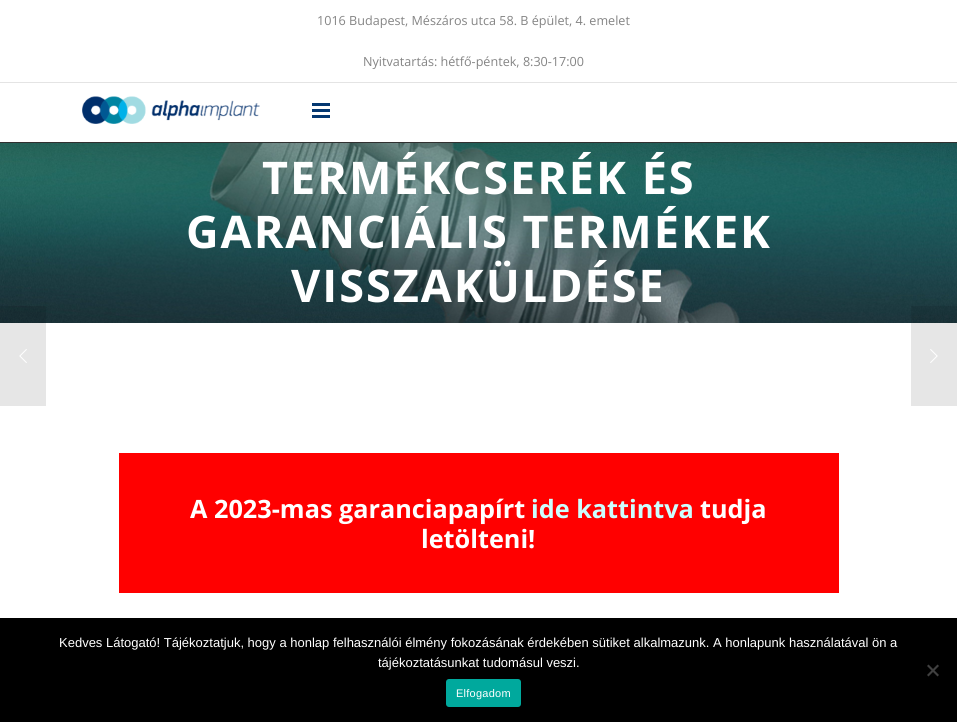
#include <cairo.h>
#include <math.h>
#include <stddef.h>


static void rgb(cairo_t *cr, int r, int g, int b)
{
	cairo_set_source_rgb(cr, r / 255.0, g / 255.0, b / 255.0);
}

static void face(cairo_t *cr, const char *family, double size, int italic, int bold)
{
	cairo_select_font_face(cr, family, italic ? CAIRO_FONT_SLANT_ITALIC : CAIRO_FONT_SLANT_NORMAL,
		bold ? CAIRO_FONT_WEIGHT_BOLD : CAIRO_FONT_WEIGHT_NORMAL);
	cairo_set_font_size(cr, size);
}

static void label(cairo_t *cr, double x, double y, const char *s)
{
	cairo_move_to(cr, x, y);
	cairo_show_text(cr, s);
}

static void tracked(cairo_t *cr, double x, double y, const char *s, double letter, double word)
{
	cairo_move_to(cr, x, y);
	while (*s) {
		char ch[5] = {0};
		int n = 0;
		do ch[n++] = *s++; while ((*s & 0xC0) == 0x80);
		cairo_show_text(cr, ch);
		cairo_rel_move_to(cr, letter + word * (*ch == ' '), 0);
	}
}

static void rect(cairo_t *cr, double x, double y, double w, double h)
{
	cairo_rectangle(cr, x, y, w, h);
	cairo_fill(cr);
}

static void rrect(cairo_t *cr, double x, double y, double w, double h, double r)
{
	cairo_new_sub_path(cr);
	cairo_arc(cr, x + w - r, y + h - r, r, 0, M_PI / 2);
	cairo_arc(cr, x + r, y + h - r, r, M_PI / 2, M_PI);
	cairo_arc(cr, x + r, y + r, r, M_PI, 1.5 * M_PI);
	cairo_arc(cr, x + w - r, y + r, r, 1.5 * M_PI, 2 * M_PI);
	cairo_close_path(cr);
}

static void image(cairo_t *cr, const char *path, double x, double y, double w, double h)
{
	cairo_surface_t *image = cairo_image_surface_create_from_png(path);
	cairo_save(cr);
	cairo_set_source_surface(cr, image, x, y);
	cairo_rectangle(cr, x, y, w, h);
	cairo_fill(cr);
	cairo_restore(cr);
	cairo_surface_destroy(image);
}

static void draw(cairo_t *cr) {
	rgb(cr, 255, 255, 255);
	cairo_paint(cr);
	rgb(cr, 48, 48, 48);
	rect(cr, 0, 142, 957, 1);
	rgb(cr, 228, 228, 228);
	rect(cr, 0, 82, 957, 1);
	face(cr, "Open Sans", 12.6, 0, 0);
	rgb(cr, 132, 132, 132);
	label(cr, 317, 25, "1016 Budapest, Mészáros utca 58. B épület, 4. emelet");
	label(cr, 363, 66, "Nyitvatartás: hétfő-péntek, 8:30-17:00");
	image(cr, "image0.png", 82, 96, 178, 28);
	rgb(cr, 4, 56, 113);
	rect(cr, 312, 103, 18, 3);
	rect(cr, 312, 109, 18, 3);
	rect(cr, 312, 115, 18, 3);
	image(cr, "image1.png", 0, 143, 957, 180);
	face(cr, "Open Sans", 45, 0, 1);
	rgb(cr, 255, 255, 255);
	tracked(cr, 262, 194, "TERMÉKCSERÉK ÉS", 2, 0);
	tracked(cr, 186, 248, "GARANCIÁLIS TERMÉKEK", 2, 0);
	tracked(cr, 291, 302, "VISSZAKÜLDÉSE", 2, 0);
	cairo_set_source_rgba(cr, 0, 0, 0, 0.1);
	rect(cr, 0, 306, 46, 100);
	image(cr, "image2.png", 19, 349, 8, 14);
	rect(cr, 911, 306, 46, 100);
	image(cr, "image3.png", 930, 349, 8, 14);
	rgb(cr, 255, 0, 0);
	rect(cr, 119, 453, 720, 140);
	face(cr, "Open Sans", 25.25, 0, 1);
	rgb(cr, 255, 255, 255);
	label(cr, 190, 518, "A 2023-mas garanciapapírt");
	rgb(cr, 204, 255, 255);
	label(cr, 531, 518, "ide kattintva");
	rgb(cr, 255, 255, 255);
	label(cr, 700, 518, "tudja");
	label(cr, 421, 548, "letölteni!");
	rgb(cr, 0, 0, 0);
	rect(cr, 0, 618, 957, 104);
	face(cr, "Liberation Sans", 13, 0, 0);
	rgb(cr, 255, 255, 255);
	label(cr, 59, 647, "Kedves Látogató! Tájékoztatjuk, hogy a honlap felhasználói élmény fokozásának érdekében sütiket alkalmazunk. A honlapunk használatával ön a");
	label(cr, 378, 667, "tájékoztatásunkat tudomásul veszi.");
	rgb(cr, 64, 64, 64);
	cairo_new_path(cr);
	cairo_move_to(cr, 937.5, 664.5);
	cairo_line_to(cr, 939, 666);
	cairo_line_to(cr, 928.5, 676.5);
	cairo_line_to(cr, 927, 675);
	cairo_close_path(cr);
	cairo_fill(cr);
	cairo_new_path(cr);
	cairo_move_to(cr, 927, 666);
	cairo_line_to(cr, 928.5, 664.5);
	cairo_line_to(cr, 939, 675);
	cairo_line_to(cr, 937.5, 676.5);
	cairo_close_path(cr);
	cairo_fill(cr);
	rgb(cr, 0, 169, 157);
	rrect(cr, 446, 679, 75, 28, 3);
	cairo_fill(cr);
	face(cr, "Liberation Sans", 11, 0, 0);
	rgb(cr, 255, 255, 255);
	tracked(cr, 456, 697, "Elfogadom", 0.25, 0);
}

int main(void) {
	cairo_surface_t *surface = cairo_image_surface_create(CAIRO_FORMAT_RGB24, 957, 722);
	cairo_t *cr = cairo_create(surface);
	cairo_font_options_t *options = cairo_font_options_create();
	cairo_font_options_set_hint_metrics(options, CAIRO_HINT_METRICS_OFF);
	cairo_font_options_set_hint_style(options, CAIRO_HINT_STYLE_NONE);
	cairo_set_font_options(cr, options);
	cairo_set_miter_limit(cr, 4);
	draw(cr);
	cairo_surface_write_to_png(surface, "render.png");
	cairo_font_options_destroy(options);
	cairo_destroy(cr);
	cairo_surface_destroy(surface);
	return 0;
}
